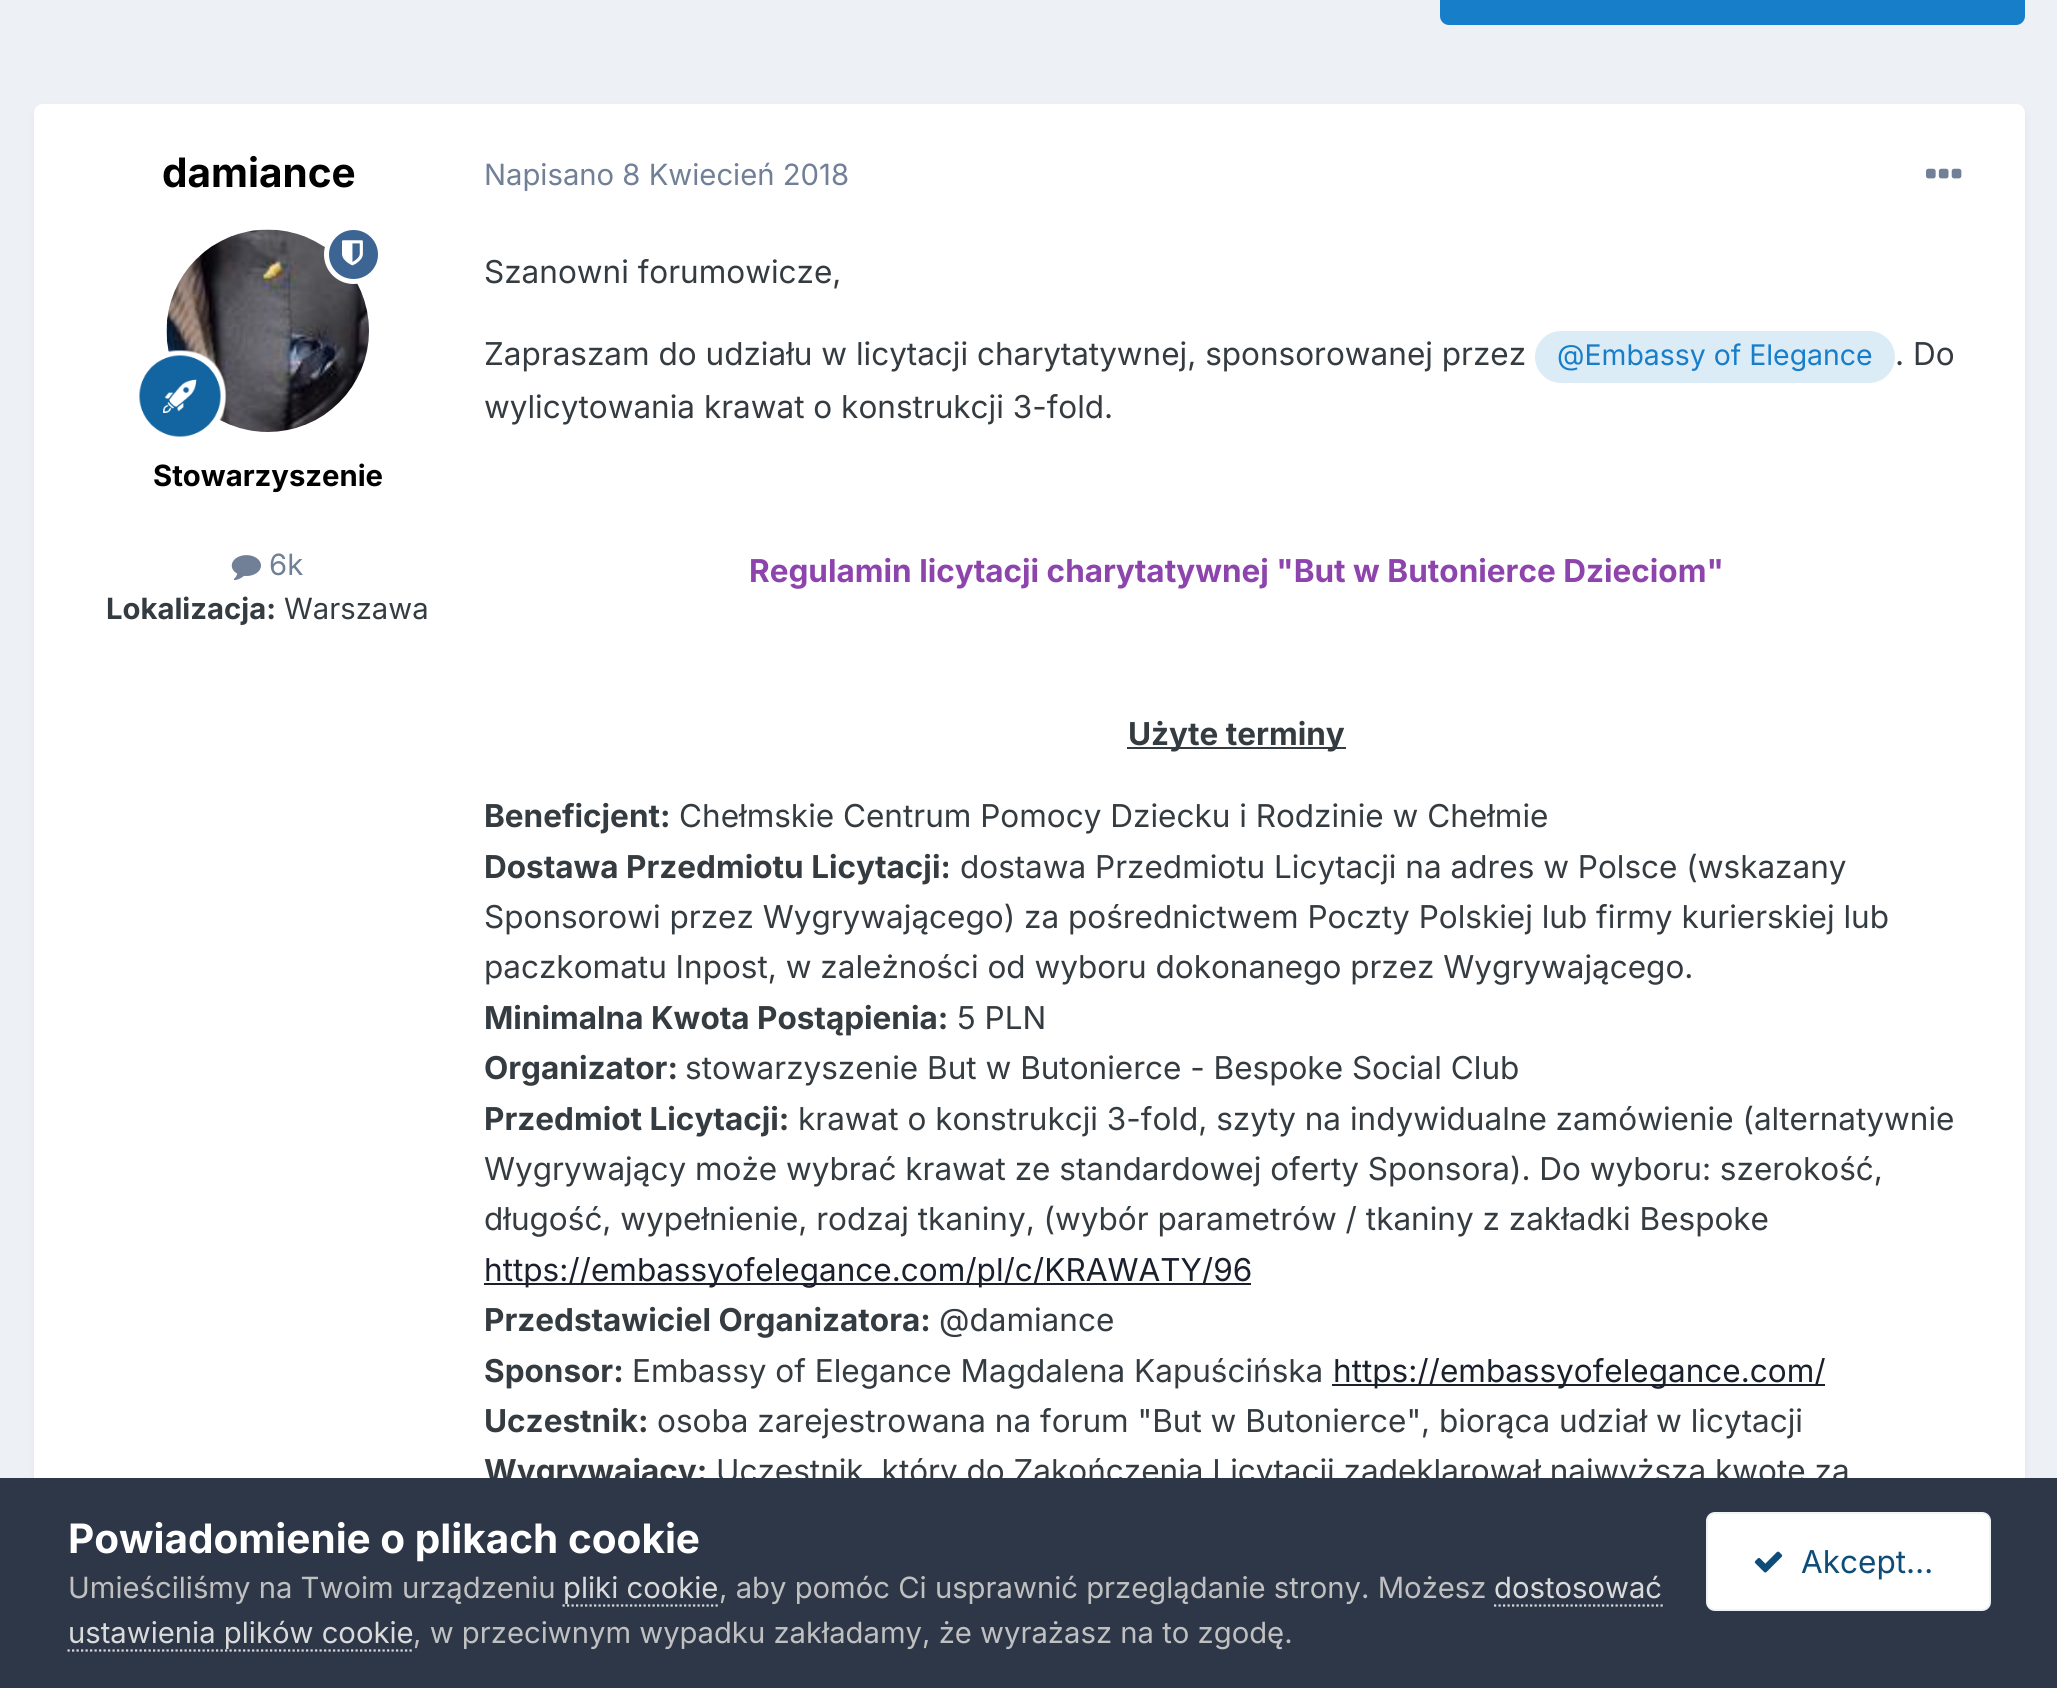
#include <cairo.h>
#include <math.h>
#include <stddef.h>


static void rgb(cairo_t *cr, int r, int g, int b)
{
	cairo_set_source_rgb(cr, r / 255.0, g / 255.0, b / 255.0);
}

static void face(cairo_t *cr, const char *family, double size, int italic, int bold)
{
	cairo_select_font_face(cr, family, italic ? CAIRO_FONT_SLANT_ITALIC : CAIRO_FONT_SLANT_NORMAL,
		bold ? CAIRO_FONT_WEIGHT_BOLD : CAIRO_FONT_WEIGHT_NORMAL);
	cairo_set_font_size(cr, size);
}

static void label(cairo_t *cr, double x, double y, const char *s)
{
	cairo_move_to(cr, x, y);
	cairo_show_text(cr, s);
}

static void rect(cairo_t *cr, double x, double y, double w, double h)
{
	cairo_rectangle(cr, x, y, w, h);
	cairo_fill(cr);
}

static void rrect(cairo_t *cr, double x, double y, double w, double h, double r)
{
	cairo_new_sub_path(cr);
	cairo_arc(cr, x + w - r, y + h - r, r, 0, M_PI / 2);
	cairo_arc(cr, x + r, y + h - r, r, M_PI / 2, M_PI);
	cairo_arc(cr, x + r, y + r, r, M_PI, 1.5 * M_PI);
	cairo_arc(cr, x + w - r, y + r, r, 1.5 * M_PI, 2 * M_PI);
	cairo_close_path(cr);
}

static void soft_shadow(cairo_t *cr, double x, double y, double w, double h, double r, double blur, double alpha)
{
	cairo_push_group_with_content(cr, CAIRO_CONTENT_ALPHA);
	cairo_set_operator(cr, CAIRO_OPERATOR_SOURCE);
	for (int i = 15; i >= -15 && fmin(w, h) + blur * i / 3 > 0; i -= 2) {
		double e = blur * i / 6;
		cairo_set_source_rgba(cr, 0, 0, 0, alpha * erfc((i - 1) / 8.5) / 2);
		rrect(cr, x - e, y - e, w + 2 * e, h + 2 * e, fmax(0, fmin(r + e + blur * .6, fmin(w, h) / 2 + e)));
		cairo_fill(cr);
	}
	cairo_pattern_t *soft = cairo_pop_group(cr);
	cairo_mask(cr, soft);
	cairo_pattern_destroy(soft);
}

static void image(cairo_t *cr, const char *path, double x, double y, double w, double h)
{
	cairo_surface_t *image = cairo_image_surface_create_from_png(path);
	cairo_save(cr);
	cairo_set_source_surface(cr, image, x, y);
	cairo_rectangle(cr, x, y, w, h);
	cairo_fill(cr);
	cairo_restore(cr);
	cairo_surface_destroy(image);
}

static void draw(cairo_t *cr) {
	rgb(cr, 237, 240, 244);
	cairo_paint(cr);
	rgb(cr, 23, 126, 201);
	rrect(cr, 1440, -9, 585, 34, 9);
	cairo_fill(cr);
	rgb(cr, 45, 55, 72);
	soft_shadow(cr, 36, 110, 1987, 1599, 7, 4.5, 0.1);
	rgb(cr, 255, 255, 255);
	rrect(cr, 34, 104, 1991, 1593, 9);
	cairo_fill(cr);
	face(cr, "Inter", 40.5, 0, 1);
	rgb(cr, 0, 0, 0);
	label(cr, 162, 187, "damiance");
	image(cr, "image1.png", 166, 229, 203, 203);
	rgb(cr, 61, 101, 148);
	cairo_arc(cr, 353.5, 254.5, 27, 0, 2 * M_PI);
	cairo_fill_preserve(cr);
	rgb(cr, 255, 255, 255);
	cairo_set_line_width(cr, 5);
	cairo_stroke(cr);
	image(cr, "image0.png", 342, 240, 21, 26);
	image(cr, "image2.png", 139, 350, 87, 87);
	face(cr, "Inter", 29.25, 0, 1);
	rgb(cr, 0, 0, 0);
	label(cr, 153, 486, "Stowarzyszenie");
	image(cr, "image3.png", 231, 555, 30, 26);
	face(cr, "Inter", 29.25, 0, 0);
	rgb(cr, 113, 128, 150);
	label(cr, 269, 575, "6k");
	face(cr, "Inter", 29.25, 0, 1);
	rgb(cr, 53, 60, 65);
	label(cr, 106, 619, "Lokalizacja:");
	face(cr, "Inter", 29.25, 0, 0);
	label(cr, 284, 619, "Warszawa");
	rgb(cr, 113, 128, 150);
	label(cr, 484, 185, "Napisano 8 Kwiecień 2018");
	image(cr, "image4.png", 1926, 168, 36, 11);
	face(cr, "Inter", 31.5, 0, 0);
	rgb(cr, 53, 60, 65);
	label(cr, 484, 283, "Szanowni forumowicze,");
	label(cr, 484, 365, "Zapraszam do udziału w licytacji charytatywnej, sponsorowanej przez");
	rgb(cr, 220, 236, 247);
	rrect(cr, 1535, 331, 360, 52, 26);
	cairo_fill(cr);
	face(cr, "Inter", 28.4, 0, 0);
	rgb(cr, 23, 126, 201);
	label(cr, 1557, 365, "@Embassy of Elegance");
	face(cr, "Inter", 31.5, 0, 0);
	rgb(cr, 53, 60, 65);
	label(cr, 1895, 365, ". Do");
	label(cr, 484, 418, "wylicytowania krawat o konstrukcji 3-fold.");
	face(cr, "Inter", 31.5, 0, 1);
	rgb(cr, 142, 68, 173);
	label(cr, 749, 582, "Regulamin licytacji charytatywnej \"But w Butonierce Dzieciom\"");
	rgb(cr, 53, 60, 65);
	rect(cr, 1127, 747, 219, 2);
	label(cr, 1128, 745, "Użyte terminy");
	label(cr, 484, 827, "Beneficjent:");
	face(cr, "Inter", 31.5, 0, 0);
	label(cr, 679, 827, "Chełmskie Centrum Pomocy Dziecku i Rodzinie w Chełmie");
	face(cr, "Inter", 31.5, 0, 1);
	label(cr, 484, 878, "Dostawa Przedmiotu Licytacji:");
	face(cr, "Inter", 31.5, 0, 0);
	label(cr, 960, 878, "dostawa Przedmiotu Licytacji na adres w Polsce (wskazany");
	label(cr, 484, 928, "Sponsorowi przez Wygrywającego) za pośrednictwem Poczty Polskiej lub firmy kurierskiej lub");
	label(cr, 484, 978, "paczkomatu Inpost, w zależności od wyboru dokonanego przez Wygrywającego.");
	face(cr, "Inter", 31.5, 0, 1);
	label(cr, 484, 1029, "Minimalna Kwota Postąpienia:");
	face(cr, "Inter", 31.5, 0, 0);
	label(cr, 957, 1029, "5 PLN");
	face(cr, "Inter", 31.5, 0, 1);
	label(cr, 484, 1079, "Organizator:");
	face(cr, "Inter", 31.5, 0, 0);
	label(cr, 685, 1079, "stowarzyszenie But w Butonierce - Bespoke Social Club");
	face(cr, "Inter", 31.5, 0, 1);
	label(cr, 484, 1130, "Przedmiot Licytacji:");
	face(cr, "Inter", 31.5, 0, 0);
	label(cr, 798, 1130, "krawat o konstrukcji 3-fold, szyty na indywidualne zamówienie (alternatywnie");
	label(cr, 484, 1180, "Wygrywający może wybrać krawat ze standardowej oferty Sponsora). Do wyboru: szerokość,");
	label(cr, 484, 1230, "długość, wypełnienie, rodzaj tkaniny, (wybór parametrów / tkaniny z zakładki Bespoke");
	rgb(cr, 26, 32, 44);
	rect(cr, 484, 1283, 767, 2);
	label(cr, 484, 1281, "https://embassyofelegance.com/pl/c/KRAWATY/96");
	face(cr, "Inter", 31.5, 0, 1);
	rgb(cr, 53, 60, 65);
	label(cr, 484, 1331, "Przedstawiciel Organizatora:");
	face(cr, "Inter", 31.5, 0, 0);
	label(cr, 939, 1331, "@damiance");
	face(cr, "Inter", 31.5, 0, 1);
	label(cr, 484, 1382, "Sponsor:");
	face(cr, "Inter", 31.5, 0, 0);
	label(cr, 632, 1382, "Embassy of Elegance Magdalena Kapuścińska");
	rgb(cr, 26, 32, 44);
	rect(cr, 1332, 1384, 493, 2);
	label(cr, 1333, 1382, "https://embassyofelegance.com/");
	face(cr, "Inter", 31.5, 0, 1);
	rgb(cr, 53, 60, 65);
	label(cr, 484, 1432, "Uczestnik:");
	face(cr, "Inter", 31.5, 0, 0);
	label(cr, 657, 1432, "osoba zarejestrowana na forum \"But w Butonierce\", biorąca udział w licytacji");
	face(cr, "Inter", 31.5, 0, 1);
	label(cr, 484, 1482, "Wygrywający:");
	face(cr, "Inter", 31.5, 0, 0);
	label(cr, 716, 1482, "Uczestnik, który do Zakończenia Licytacji zadeklarował najwyższą kwotę za");
	rgb(cr, 45, 55, 72);
	rect(cr, 0, 1478, 2057, 210);
	face(cr, "Inter", 40.5, 0, 1);
	rgb(cr, 255, 255, 255);
	label(cr, 68, 1553, "Powiadomienie o plikach cookie");
	face(cr, "Inter", 29.25, 0, 0);
	rgb(cr, 192, 192, 192);
	label(cr, 68, 1598, "Umieściliśmy na Twoim urządzeniu");
	rgb(cr, 218, 218, 218);
	label(cr, 563, 1598, "pliki cookie");
	cairo_new_path(cr);
	cairo_move_to(cr, 562.5, 1605.5);
	cairo_line_to(cr, 718, 1605.5);
	cairo_set_line_width(cr, 2.2);
	cairo_set_dash(cr, (double[]){2.25, 2.25}, 2, 0);
	cairo_stroke(cr);
	rgb(cr, 192, 192, 192);
	label(cr, 719, 1598, ", aby pomóc Ci usprawnić przeglądanie strony. Możesz");
	rgb(cr, 218, 218, 218);
	label(cr, 1494, 1598, "dostosować");
	cairo_new_path(cr);
	cairo_move_to(cr, 1494, 1605.5);
	cairo_line_to(cr, 1663, 1605.5);
	cairo_stroke(cr);
	label(cr, 68, 1643, "ustawienia plików cookie");
	cairo_new_path(cr);
	cairo_move_to(cr, 67.5, 1650.5);
	cairo_line_to(cr, 414, 1650.5);
	cairo_stroke(cr);
	rgb(cr, 192, 192, 192);
	label(cr, 413, 1643, ", w przeciwnym wypadku zakładamy, że wyrażasz na to zgodę.");
	rgb(cr, 255, 255, 255);
	rrect(cr, 1706, 1512, 285, 99, 9);
	cairo_fill(cr);
	rrect(cr, 1707, 1513, 283, 97, 8);
	cairo_set_source_rgba(cr, 0.055, 0.298, 0.475, 0.07);
	cairo_set_line_width(cr, 2);
	cairo_set_dash(cr, NULL, 0, 0);
	cairo_stroke(cr);
	image(cr, "image5.png", 1754, 1551, 29, 22);
	face(cr, "Inter", 31.5, 0, 0);
	rgb(cr, 14, 76, 121);
	label(cr, 1801, 1573, "Akcept…");
}

int main(void) {
	cairo_surface_t *surface = cairo_image_surface_create(CAIRO_FORMAT_RGB24, 2057, 1688);
	cairo_t *cr = cairo_create(surface);
	cairo_font_options_t *options = cairo_font_options_create();
	cairo_font_options_set_hint_metrics(options, CAIRO_HINT_METRICS_OFF);
	cairo_font_options_set_hint_style(options, CAIRO_HINT_STYLE_NONE);
	cairo_set_font_options(cr, options);
	cairo_set_miter_limit(cr, 4);
	draw(cr);
	cairo_surface_write_to_png(surface, "render.png");
	cairo_font_options_destroy(options);
	cairo_destroy(cr);
	cairo_surface_destroy(surface);
	return 0;
}
